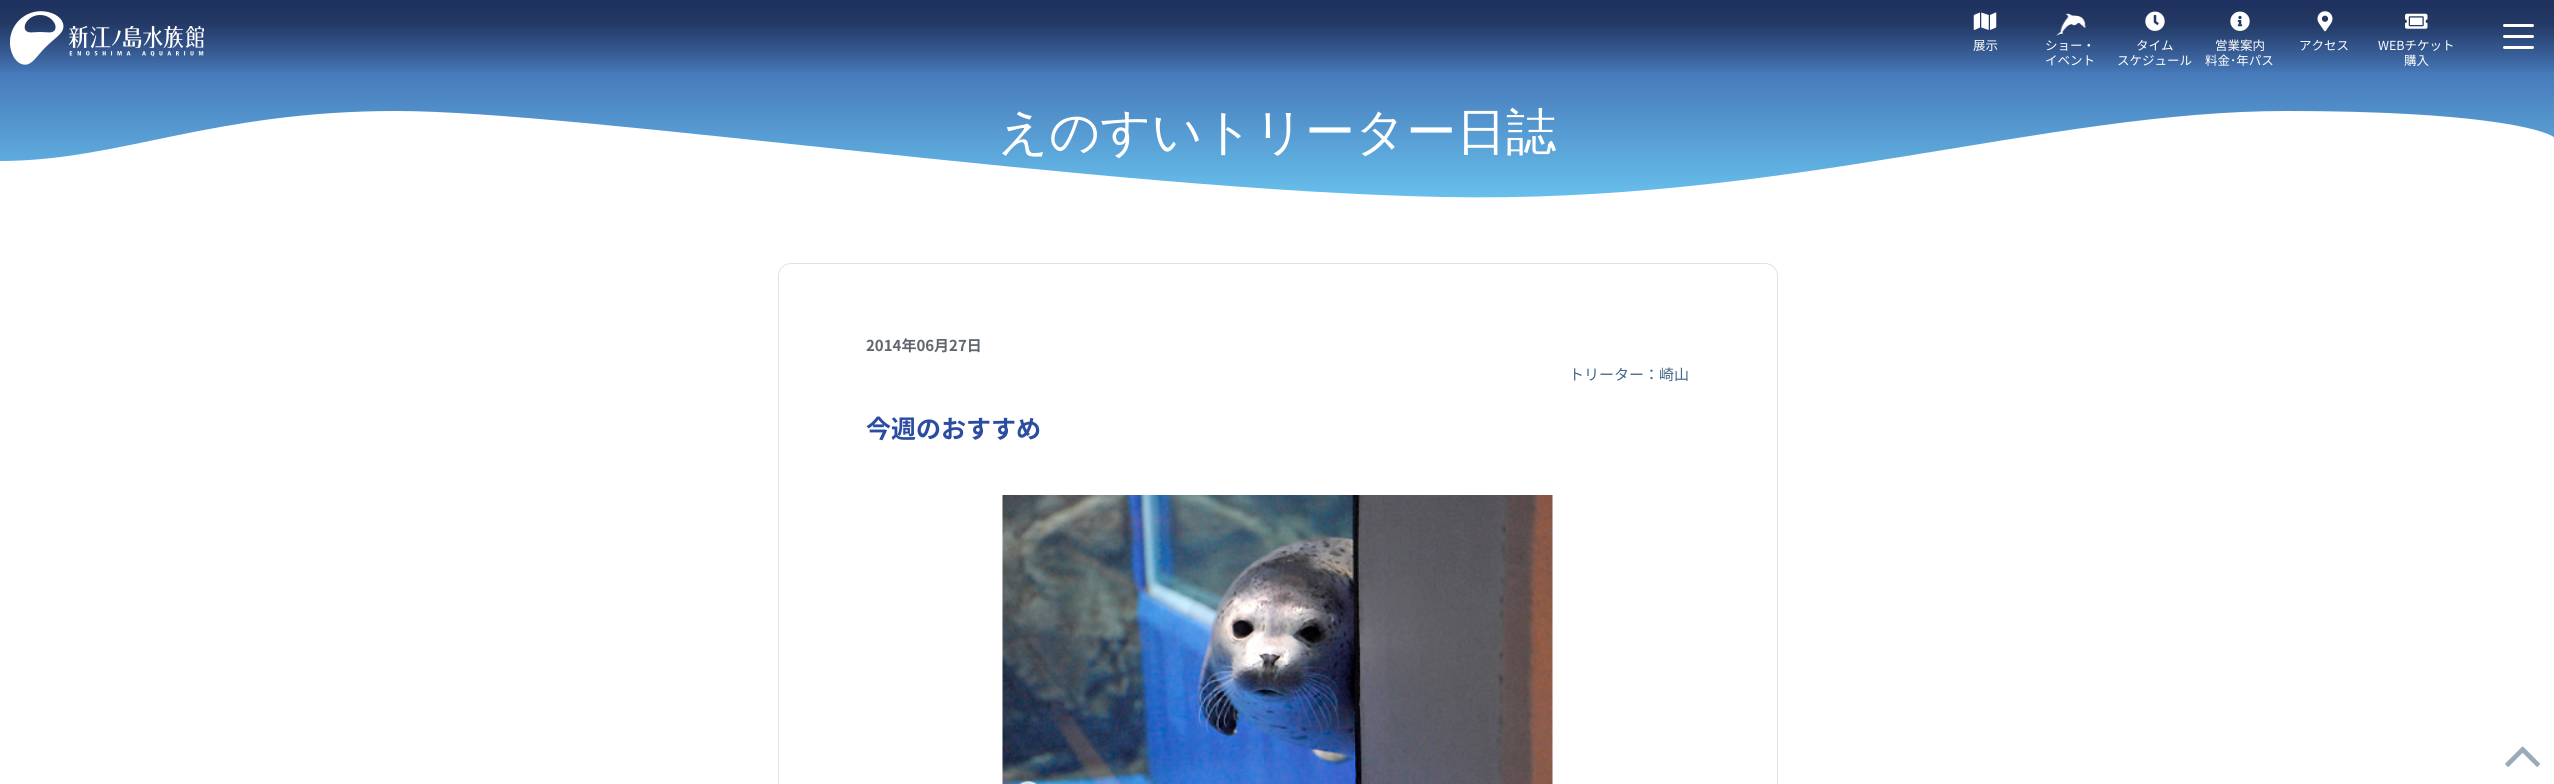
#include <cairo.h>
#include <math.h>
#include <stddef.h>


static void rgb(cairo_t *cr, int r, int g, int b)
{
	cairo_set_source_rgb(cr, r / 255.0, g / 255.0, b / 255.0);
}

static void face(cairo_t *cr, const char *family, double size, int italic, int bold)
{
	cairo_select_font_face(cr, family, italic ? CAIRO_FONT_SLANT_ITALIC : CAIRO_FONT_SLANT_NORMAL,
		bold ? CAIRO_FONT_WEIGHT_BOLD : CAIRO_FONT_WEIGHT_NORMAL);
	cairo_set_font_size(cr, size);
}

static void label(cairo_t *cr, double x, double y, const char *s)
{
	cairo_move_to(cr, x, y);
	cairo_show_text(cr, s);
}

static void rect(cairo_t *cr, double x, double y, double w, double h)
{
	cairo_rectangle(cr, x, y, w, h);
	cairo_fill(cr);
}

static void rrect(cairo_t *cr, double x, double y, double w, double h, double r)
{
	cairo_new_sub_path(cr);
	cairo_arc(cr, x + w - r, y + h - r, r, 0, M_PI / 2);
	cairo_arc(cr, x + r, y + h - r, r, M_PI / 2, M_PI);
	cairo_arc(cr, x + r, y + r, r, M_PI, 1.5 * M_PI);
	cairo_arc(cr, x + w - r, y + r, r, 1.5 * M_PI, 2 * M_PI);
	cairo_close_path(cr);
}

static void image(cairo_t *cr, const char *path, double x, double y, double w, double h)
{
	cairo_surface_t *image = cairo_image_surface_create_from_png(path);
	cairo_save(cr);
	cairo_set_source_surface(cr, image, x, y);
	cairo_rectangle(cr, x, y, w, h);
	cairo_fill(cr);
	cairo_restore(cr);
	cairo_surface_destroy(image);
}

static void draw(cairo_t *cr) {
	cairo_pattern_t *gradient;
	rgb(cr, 255, 255, 255);
	cairo_paint(cr);
	gradient = cairo_pattern_create_linear(1278, 213, 1278, 0);
	cairo_pattern_add_color_stop_rgba(gradient, 0, 0.42, 0.784, 0.949, 1);
	cairo_pattern_add_color_stop_rgba(gradient, 1, 0.204, 0.318, 0.616, 1);
	cairo_set_source(cr, gradient);
	cairo_pattern_destroy(gradient);
	rect(cr, 0, 0, 2554, 198);
	gradient = cairo_pattern_create_linear(1278, 75, 1278, 0);
	cairo_pattern_add_color_stop_rgba(gradient, 0, 0, 0, 0, 0);
	cairo_pattern_add_color_stop_rgba(gradient, 0.7, 0, 0, 0, 0.4);
	cairo_set_source(cr, gradient);
	cairo_pattern_destroy(gradient);
	rect(cr, 0, 0, 2554, 72);
	image(cr, "image0.png", 1973, 12, 24, 18);
	face(cr, "Noto Sans JP", 12.5, 0, 0);
	rgb(cr, 255, 255, 255);
	label(cr, 1973, 50, "展示");
	image(cr, "image1.png", 2056, 13, 30, 23);
	label(cr, 2045, 50, "ショー・");
	label(cr, 2045, 65, "イベント");
	image(cr, "image2.png", 2145, 11, 20, 20);
	label(cr, 2136, 50, "タイム");
	label(cr, 2117, 65, "スケジュール");
	image(cr, "image3.png", 2230, 11, 20, 20);
	label(cr, 2215, 50, "営業案内");
	label(cr, 2205, 65, "料金･年パス");
	image(cr, "image4.png", 2317, 11, 16, 21);
	label(cr, 2299, 50, "アクセス");
	image(cr, "image5.png", 10, 11, 194, 54);
	rrect(cr, 2503, 24, 31, 3, 1.5);
	cairo_fill(cr);
	rrect(cr, 2503, 35, 31, 3, 1.5);
	cairo_fill(cr);
	rrect(cr, 2503, 46, 31, 3, 1.5);
	cairo_fill(cr);
	image(cr, "image6.png", 2405, 13, 23, 16);
	label(cr, 2378, 50, "WEBチケット");
	label(cr, 2404, 65, "購入");
	cairo_save(cr);
	cairo_rectangle(cr, 0, 111, 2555, 103);
	cairo_clip(cr);
	cairo_new_path(cr);
	cairo_move_to(cr, 396, 111);
	cairo_curve_to(cr, 212, 111, 119, 161, 0, 161);
	cairo_line_to(cr, 0, 319);
	cairo_line_to(cr, 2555, 319);
	cairo_line_to(cr, 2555, 138);
	cairo_curve_to(cr, 2545, 129, 2477, 111, 2286, 111);
	cairo_curve_to(cr, 2047, 111, 1784, 204, 1443, 197);
	cairo_curve_to(cr, 1102, 190, 580, 111, 396, 111);
	cairo_close_path(cr);
	cairo_fill(cr);
	cairo_restore(cr);
	face(cr, "WenQuanYi Zen Hei Medium", 50, 0, 0);
	label(cr, 998, 149, "えのすいトリーター日誌");
	rrect(cr, 778.5, 263.5, 999, 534, 12.5);
	rgb(cr, 222, 227, 231);
	cairo_set_line_width(cr, 1);
	cairo_stroke(cr);
	face(cr, "Noto Sans JP", 15, 0, 1);
	rgb(cr, 96, 102, 109);
	label(cr, 866, 351, "2014年06月27日");
	face(cr, "Noto Sans JP", 15, 0, 0);
	rgb(cr, 68, 102, 136);
	label(cr, 1569, 380, "トリーター：崎山");
	face(cr, "Noto Sans JP", 25, 0, 1);
	rgb(cr, 43, 76, 160);
	label(cr, 866, 438, "今週のおすすめ");
	image(cr, "image7.png", 1002, 495, 551, 289);
	image(cr, "image8.png", 2505, 746, 35, 21);
}

int main(void) {
	cairo_surface_t *surface = cairo_image_surface_create(CAIRO_FORMAT_RGB24, 2554, 784);
	cairo_t *cr = cairo_create(surface);
	cairo_font_options_t *options = cairo_font_options_create();
	cairo_font_options_set_hint_metrics(options, CAIRO_HINT_METRICS_OFF);
	cairo_font_options_set_hint_style(options, CAIRO_HINT_STYLE_NONE);
	cairo_set_font_options(cr, options);
	cairo_set_miter_limit(cr, 4);
	draw(cr);
	cairo_surface_write_to_png(surface, "render.png");
	cairo_font_options_destroy(options);
	cairo_destroy(cr);
	cairo_surface_destroy(surface);
	return 0;
}
